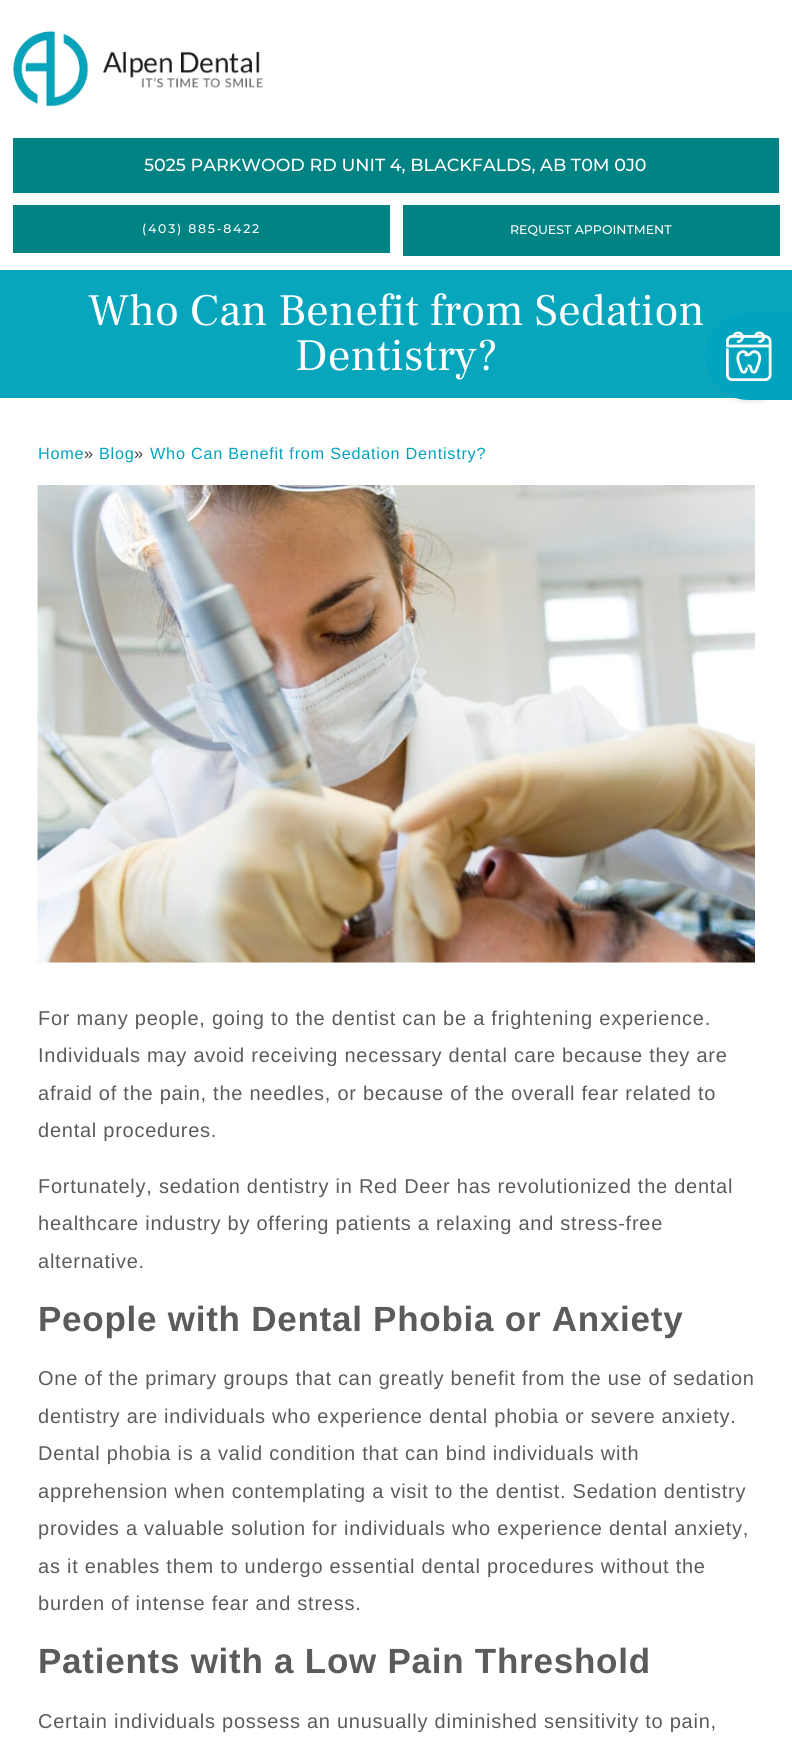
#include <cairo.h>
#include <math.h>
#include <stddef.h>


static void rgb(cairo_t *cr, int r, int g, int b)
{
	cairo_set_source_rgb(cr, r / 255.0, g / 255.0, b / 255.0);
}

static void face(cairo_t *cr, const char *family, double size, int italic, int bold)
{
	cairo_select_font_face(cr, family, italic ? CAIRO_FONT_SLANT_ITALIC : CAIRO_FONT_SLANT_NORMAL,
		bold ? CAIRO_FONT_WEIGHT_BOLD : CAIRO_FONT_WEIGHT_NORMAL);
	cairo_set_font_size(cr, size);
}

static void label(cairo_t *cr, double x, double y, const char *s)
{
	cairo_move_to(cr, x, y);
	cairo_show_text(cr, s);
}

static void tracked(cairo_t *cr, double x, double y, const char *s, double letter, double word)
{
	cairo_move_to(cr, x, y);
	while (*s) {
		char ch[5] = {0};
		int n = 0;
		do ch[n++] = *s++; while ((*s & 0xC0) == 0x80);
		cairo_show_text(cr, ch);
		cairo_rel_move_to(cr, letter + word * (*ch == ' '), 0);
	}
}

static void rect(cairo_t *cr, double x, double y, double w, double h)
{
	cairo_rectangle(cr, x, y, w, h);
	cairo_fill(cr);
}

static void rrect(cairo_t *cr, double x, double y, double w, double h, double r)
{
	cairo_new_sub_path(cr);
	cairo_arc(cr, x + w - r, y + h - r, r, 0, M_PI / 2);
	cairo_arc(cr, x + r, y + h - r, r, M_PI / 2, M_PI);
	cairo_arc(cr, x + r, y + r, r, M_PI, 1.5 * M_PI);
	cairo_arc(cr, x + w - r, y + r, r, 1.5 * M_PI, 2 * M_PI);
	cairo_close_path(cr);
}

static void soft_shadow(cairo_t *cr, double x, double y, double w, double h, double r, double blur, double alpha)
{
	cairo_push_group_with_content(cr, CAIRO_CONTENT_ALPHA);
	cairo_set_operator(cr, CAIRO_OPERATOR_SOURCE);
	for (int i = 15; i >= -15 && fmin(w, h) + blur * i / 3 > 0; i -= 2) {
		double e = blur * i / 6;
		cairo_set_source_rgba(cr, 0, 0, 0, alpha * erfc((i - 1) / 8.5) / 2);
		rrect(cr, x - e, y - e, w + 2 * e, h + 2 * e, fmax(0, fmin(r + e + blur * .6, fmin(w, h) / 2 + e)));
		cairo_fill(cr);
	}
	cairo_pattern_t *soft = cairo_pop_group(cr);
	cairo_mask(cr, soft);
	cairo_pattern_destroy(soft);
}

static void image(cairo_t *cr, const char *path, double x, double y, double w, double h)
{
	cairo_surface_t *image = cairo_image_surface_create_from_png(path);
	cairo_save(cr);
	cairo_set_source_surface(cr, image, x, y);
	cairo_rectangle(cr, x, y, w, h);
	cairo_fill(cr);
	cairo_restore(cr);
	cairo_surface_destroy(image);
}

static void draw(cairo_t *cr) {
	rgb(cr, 255, 255, 255);
	cairo_paint(cr);
	image(cr, "image0.png", 13, 31, 250, 76);
	rgb(cr, 1, 131, 131);
	rect(cr, 13, 138, 766, 55);
	face(cr, "Montserrat Medium", 17.5, 0, 0);
	rgb(cr, 255, 255, 255);
	label(cr, 144, 171, "5025 PARKWOOD RD UNIT 4, BLACKFALDS, AB T0M 0J0");
	rgb(cr, 1, 131, 131);
	rect(cr, 13, 205, 377, 48);
	face(cr, "Montserrat Medium", 12.5, 0, 0);
	rgb(cr, 255, 255, 255);
	tracked(cr, 142, 233, "(403) 885-8422", 1.75, 0);
	rgb(cr, 1, 131, 131);
	rect(cr, 403, 205, 377, 51);
	rgb(cr, 255, 255, 255);
	label(cr, 510, 234, "REQUEST APPOINTMENT");
	rgb(cr, 7, 166, 189);
	rect(cr, 0, 270, 792, 128);
	face(cr, "Frank Ruhl Libre", 45, 0, 0);
	rgb(cr, 255, 255, 255);
	label(cr, 88, 325, "Who Can Benefit from Sedation");
	label(cr, 295, 370, "Dentistry?");
	face(cr, "Liberation Sans", 16.25, 0, 0);
	rgb(cr, 0, 164, 190);
	tracked(cr, 38, 459, "Home", 0.75, 0);
	rgb(cr, 56, 56, 56);
	tracked(cr, 84, 459, "»", 0.75, 0);
	rgb(cr, 0, 164, 190);
	tracked(cr, 99, 459, "Blog", 0.75, 0);
	rgb(cr, 56, 56, 56);
	tracked(cr, 134, 459, "»", 0.75, 0);
	rgb(cr, 0, 164, 190);
	tracked(cr, 150, 459, "Who Can Benefit from Sedation Dentistry?", 0.75, 0);
	image(cr, "image1.png", 37, 485, 718, 478);
	face(cr, "Liberation Sans", 20, 0, 0);
	rgb(cr, 91, 91, 91);
	tracked(cr, 38, 1025, "For many people, going to the dentist can be a frightening experience.", 0.75, 0);
	tracked(cr, 38, 1062, "Individuals may avoid receiving necessary dental care because they are", 0.75, 0);
	tracked(cr, 38, 1100, "afraid of the pain, the needles, or because of the overall fear related to", 0.75, 0);
	tracked(cr, 38, 1137, "dental procedures.", 0.75, 0);
	tracked(cr, 38, 1193, "Fortunately, sedation dentistry in Red Deer has revolutionized the dental", 0.75, 0);
	tracked(cr, 38, 1230, "healthcare industry by offering patients a relaxing and stress-free", 0.75, 0);
	tracked(cr, 38, 1268, "alternative.", 0.75, 0);
	face(cr, "Liberation Sans", 35, 0, 1);
	tracked(cr, 38, 1331, "People with Dental Phobia or Anxiety", 0.75, 0);
	face(cr, "Liberation Sans", 20, 0, 0);
	tracked(cr, 38, 1385, "One of the primary groups that can greatly benefit from the use of sedation", 0.75, 0);
	tracked(cr, 38, 1423, "dentistry are individuals who experience dental phobia or severe anxiety.", 0.75, 0);
	tracked(cr, 38, 1460, "Dental phobia is a valid condition that can bind individuals with", 0.75, 0);
	tracked(cr, 38, 1498, "apprehension when contemplating a visit to the dentist. Sedation dentistry", 0.75, 0);
	tracked(cr, 38, 1535, "provides a valuable solution for individuals who experience dental anxiety,", 0.75, 0);
	tracked(cr, 38, 1573, "as it enables them to undergo essential dental procedures without the", 0.75, 0);
	tracked(cr, 38, 1610, "burden of intense fear and stress.", 0.75, 0);
	face(cr, "Liberation Sans", 35, 0, 1);
	tracked(cr, 38, 1673, "Patients with a Low Pain Threshold", 0.75, 0);
	face(cr, "Liberation Sans", 20, 0, 0);
	tracked(cr, 38, 1728, "Certain individuals possess an unusually diminished sensitivity to pain,", 0.75, 0);
	rgb(cr, 128, 128, 128);
	soft_shadow(cr, 706, 315, 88, 88, 44, 2, 0.15);
	rgb(cr, 0, 164, 190);
	cairo_new_path(cr);
	cairo_move_to(cr, 748.5, 313);
	cairo_line_to(cr, 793, 313);
	cairo_line_to(cr, 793, 400);
	cairo_line_to(cr, 748.5, 400);
	cairo_curve_to(cr, 724.5, 400, 705, 380.5, 705, 356.5);
	cairo_curve_to(cr, 705, 332.5, 724.5, 313, 748.5, 313);
	cairo_close_path(cr);
	cairo_fill(cr);
	image(cr, "image2.png", 726, 331, 46, 50);
}

int main(void) {
	cairo_surface_t *surface = cairo_image_surface_create(CAIRO_FORMAT_RGB24, 792, 1745);
	cairo_t *cr = cairo_create(surface);
	cairo_font_options_t *options = cairo_font_options_create();
	cairo_font_options_set_hint_metrics(options, CAIRO_HINT_METRICS_OFF);
	cairo_font_options_set_hint_style(options, CAIRO_HINT_STYLE_NONE);
	cairo_set_font_options(cr, options);
	cairo_set_miter_limit(cr, 4);
	draw(cr);
	cairo_surface_write_to_png(surface, "render.png");
	cairo_font_options_destroy(options);
	cairo_destroy(cr);
	cairo_surface_destroy(surface);
	return 0;
}
